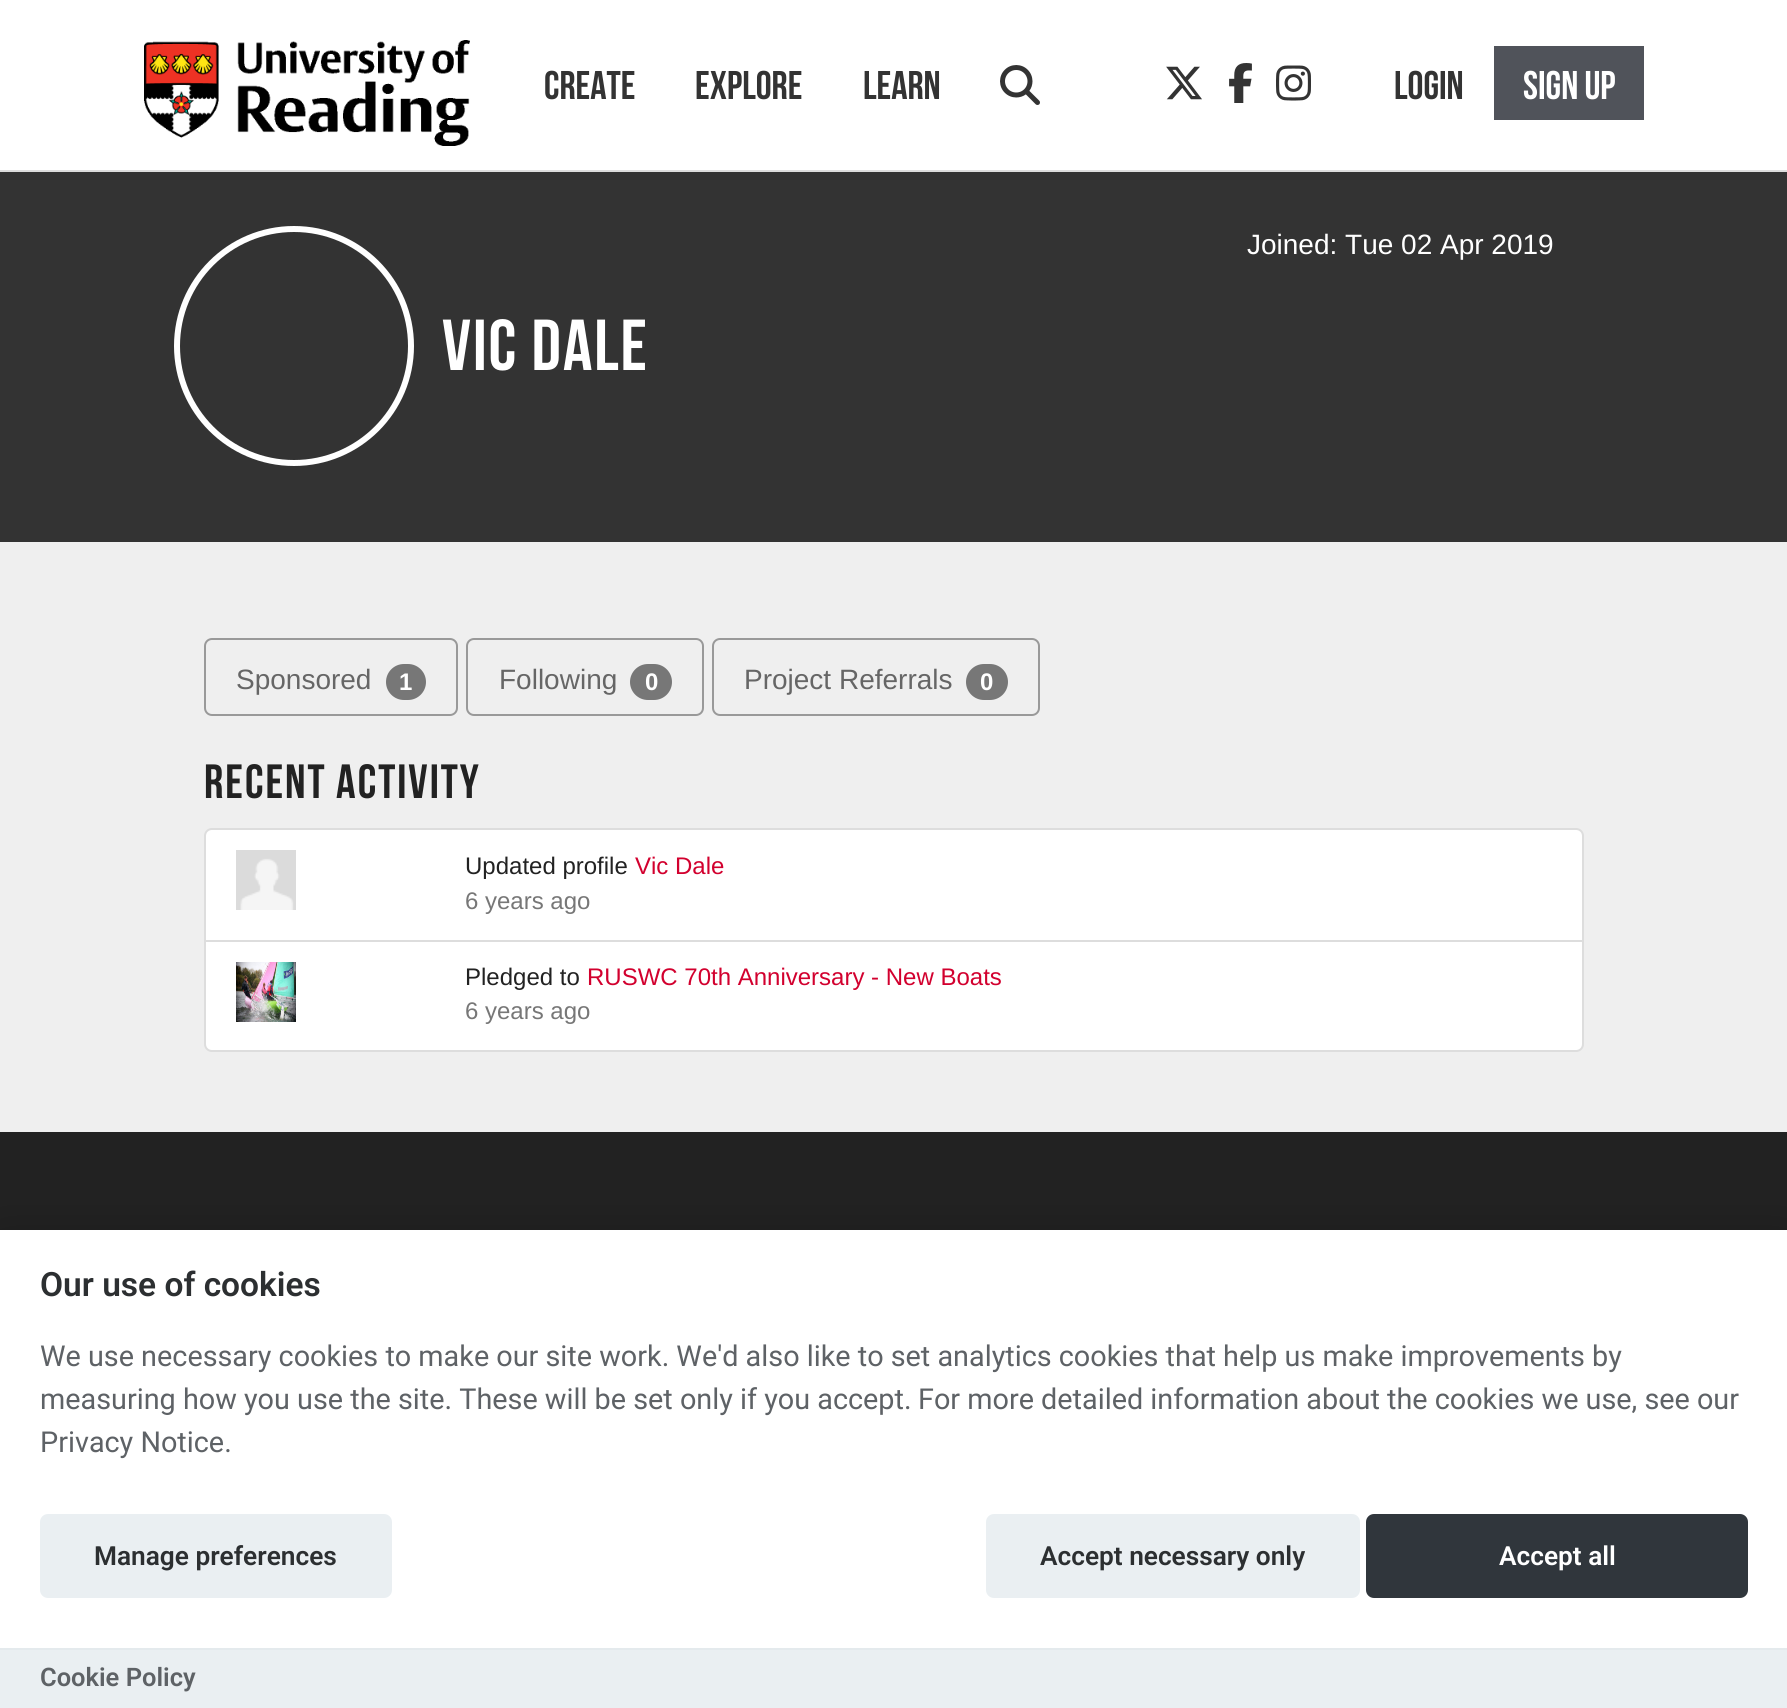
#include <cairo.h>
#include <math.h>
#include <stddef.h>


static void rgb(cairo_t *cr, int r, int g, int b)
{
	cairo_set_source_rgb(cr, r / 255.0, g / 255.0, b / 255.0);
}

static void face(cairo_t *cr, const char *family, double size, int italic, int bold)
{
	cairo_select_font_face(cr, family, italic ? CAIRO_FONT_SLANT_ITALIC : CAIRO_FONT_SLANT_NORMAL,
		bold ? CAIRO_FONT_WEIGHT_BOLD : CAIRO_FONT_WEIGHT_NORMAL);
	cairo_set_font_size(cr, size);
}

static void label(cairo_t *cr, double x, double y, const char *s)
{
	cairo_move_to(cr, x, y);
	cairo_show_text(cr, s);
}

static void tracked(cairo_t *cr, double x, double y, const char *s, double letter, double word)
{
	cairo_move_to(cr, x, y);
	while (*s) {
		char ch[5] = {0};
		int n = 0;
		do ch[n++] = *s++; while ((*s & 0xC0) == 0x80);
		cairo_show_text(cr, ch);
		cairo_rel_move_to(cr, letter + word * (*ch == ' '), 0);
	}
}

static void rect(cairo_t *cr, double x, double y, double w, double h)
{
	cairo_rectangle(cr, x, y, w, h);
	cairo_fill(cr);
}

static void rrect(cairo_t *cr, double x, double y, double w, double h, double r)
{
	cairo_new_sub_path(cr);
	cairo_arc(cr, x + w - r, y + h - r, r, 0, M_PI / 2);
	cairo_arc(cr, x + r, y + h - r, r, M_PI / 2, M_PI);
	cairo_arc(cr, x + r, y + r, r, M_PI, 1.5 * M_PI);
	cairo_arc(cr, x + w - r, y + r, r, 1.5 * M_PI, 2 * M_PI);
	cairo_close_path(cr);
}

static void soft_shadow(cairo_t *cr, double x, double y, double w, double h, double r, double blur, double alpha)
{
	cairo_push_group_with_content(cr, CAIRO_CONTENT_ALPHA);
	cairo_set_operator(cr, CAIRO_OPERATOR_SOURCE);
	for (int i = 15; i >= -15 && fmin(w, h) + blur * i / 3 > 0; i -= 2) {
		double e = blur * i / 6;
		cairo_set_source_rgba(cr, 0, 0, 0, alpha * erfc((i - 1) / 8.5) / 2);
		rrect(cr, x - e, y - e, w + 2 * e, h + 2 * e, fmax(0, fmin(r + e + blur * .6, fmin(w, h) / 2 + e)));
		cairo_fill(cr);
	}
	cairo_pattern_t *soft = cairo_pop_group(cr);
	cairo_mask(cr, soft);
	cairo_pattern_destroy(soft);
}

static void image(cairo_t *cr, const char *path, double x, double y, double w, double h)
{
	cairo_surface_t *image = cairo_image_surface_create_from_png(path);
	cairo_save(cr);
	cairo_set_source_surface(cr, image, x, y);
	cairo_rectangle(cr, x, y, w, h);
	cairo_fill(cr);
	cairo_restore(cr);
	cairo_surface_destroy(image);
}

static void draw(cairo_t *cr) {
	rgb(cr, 239, 239, 239);
	cairo_paint(cr);
	rgb(cr, 255, 255, 255);
	rect(cr, 0, 0, 1787, 170);
	image(cr, "image0.png", 144, 40, 326, 106);
	face(cr, "Bebas Neue", 40, 0, 1);
	rgb(cr, 51, 51, 51);
	label(cr, 544, 99, "CREATE");
	label(cr, 695, 99, "EXPLORE");
	label(cr, 863, 99, "LEARN");
	image(cr, "image1.png", 1000, 65, 40, 40);
	image(cr, "image2.png", 1166, 66, 36, 34);
	image(cr, "image3.png", 1229, 63, 23, 40);
	image(cr, "image4.png", 1276, 65, 35, 36);
	label(cr, 1394, 99, "LOGIN");
	rgb(cr, 80, 83, 90);
	rect(cr, 1494, 46, 150, 74);
	rgb(cr, 255, 255, 255);
	label(cr, 1523, 99, "SIGN UP");
	rgb(cr, 221, 221, 221);
	rect(cr, 0, 170, 1787, 2);
	rgb(cr, 51, 51, 51);
	rect(cr, 0, 172, 1787, 370);
	cairo_new_path(cr);
	cairo_arc(cr, 294, 346, 117, 0, 2 * M_PI);
	rgb(cr, 255, 255, 255);
	cairo_set_line_width(cr, 6);
	cairo_stroke(cr);
	face(cr, "Liberation Sans", 28, 0, 0);
	label(cr, 1247, 254, "Joined: Tue 02 Apr 2019");
	face(cr, "Bebas Neue", 72, 0, 1);
	tracked(cr, 442, 370, "Vic Dale", 2, 0);
	rrect(cr, 205, 639, 252, 76, 7);
	rgb(cr, 153, 153, 153);
	cairo_set_line_width(cr, 2);
	cairo_stroke(cr);
	face(cr, "Liberation Sans", 28, 0, 0);
	rgb(cr, 102, 102, 102);
	label(cr, 236, 689, "Sponsored");
	rgb(cr, 119, 119, 119);
	rrect(cr, 386, 664, 40, 36, 18);
	cairo_fill(cr);
	face(cr, "Liberation Sans", 24, 0, 1);
	rgb(cr, 255, 255, 255);
	label(cr, 399, 690, "1");
	rrect(cr, 467, 639, 236, 76, 7);
	rgb(cr, 153, 153, 153);
	cairo_stroke(cr);
	face(cr, "Liberation Sans", 28, 0, 0);
	rgb(cr, 102, 102, 102);
	label(cr, 499, 689, "Following");
	rgb(cr, 119, 119, 119);
	rrect(cr, 630, 664, 42, 36, 18);
	cairo_fill(cr);
	face(cr, "Liberation Sans", 24, 0, 1);
	rgb(cr, 255, 255, 255);
	label(cr, 645, 690, "0");
	rrect(cr, 713, 639, 326, 76, 7);
	rgb(cr, 153, 153, 153);
	cairo_stroke(cr);
	face(cr, "Liberation Sans", 28, 0, 0);
	rgb(cr, 102, 102, 102);
	label(cr, 744, 689, "Project Referrals");
	rgb(cr, 119, 119, 119);
	rrect(cr, 966, 664, 42, 36, 18);
	cairo_fill(cr);
	face(cr, "Liberation Sans", 24, 0, 1);
	rgb(cr, 255, 255, 255);
	label(cr, 980, 690, "0");
	face(cr, "Bebas Neue", 48, 0, 1);
	rgb(cr, 34, 34, 34);
	tracked(cr, 204, 798, "Recent Activity", 2, 0);
	rgb(cr, 255, 255, 255);
	cairo_new_path(cr);
	cairo_move_to(cr, 212, 829);
	cairo_line_to(cr, 1576, 829);
	cairo_curve_to(cr, 1580, 829, 1583, 832, 1583, 836);
	cairo_line_to(cr, 1583, 941);
	cairo_line_to(cr, 205, 941);
	cairo_line_to(cr, 205, 836);
	cairo_curve_to(cr, 205, 832, 208, 829, 212, 829);
	cairo_close_path(cr);
	cairo_fill_preserve(cr);
	rgb(cr, 221, 221, 221);
	cairo_stroke(cr);
	image(cr, "image5.png", 236, 850, 60, 60);
	face(cr, "Liberation Sans", 24, 0, 0);
	rgb(cr, 34, 34, 34);
	label(cr, 465, 874, "Updated profile");
	rgb(cr, 210, 0, 46);
	label(cr, 635, 874, "Vic Dale");
	rgb(cr, 119, 119, 119);
	label(cr, 465, 909, "6 years ago");
	rgb(cr, 255, 255, 255);
	cairo_new_path(cr);
	cairo_move_to(cr, 205, 941);
	cairo_line_to(cr, 1583, 941);
	cairo_line_to(cr, 1583, 1044);
	cairo_curve_to(cr, 1583, 1048, 1580, 1051, 1576, 1051);
	cairo_line_to(cr, 212, 1051);
	cairo_curve_to(cr, 208, 1051, 205, 1048, 205, 1044);
	cairo_close_path(cr);
	cairo_fill_preserve(cr);
	rgb(cr, 221, 221, 221);
	cairo_stroke(cr);
	image(cr, "image6.png", 236, 962, 60, 60);
	rgb(cr, 34, 34, 34);
	label(cr, 465, 985, "Pledged to");
	rgb(cr, 210, 0, 46);
	label(cr, 587, 985, "RUSWC 70th Anniversary - New Boats");
	rgb(cr, 119, 119, 119);
	label(cr, 465, 1019, "6 years ago");
	rgb(cr, 34, 34, 34);
	rect(cr, 0, 1132, 1787, 98);
	rgb(cr, 0, 0, 2);
	soft_shadow(cr, 0, 1250, 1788, 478, 0, 30, 0.3);
	rgb(cr, 255, 255, 255);
	rect(cr, 0, 1230, 1787, 418);
	face(cr, "Roboto SemiBold", 33.5, 0, 0);
	rgb(cr, 44, 47, 49);
	label(cr, 40, 1296, "Our use of cookies");
	face(cr, "Roboto", 28.8, 0, 0);
	rgb(cr, 94, 98, 102);
	label(cr, 40, 1366, "We use necessary cookies to make our site work. We'd also like to set analytics cookies that help us make improvements by");
	label(cr, 40, 1409, "measuring how you use the site. These will be set only if you accept.");
	label(cr, 918, 1409, "For more detailed information about the cookies we use, see our");
	label(cr, 40, 1452, "Privacy Notice.");
	rgb(cr, 234, 239, 242);
	rrect(cr, 41, 1515, 350, 82, 7);
	cairo_fill_preserve(cr);
	cairo_stroke(cr);
	face(cr, "Roboto SemiBold", 26.25, 0, 0);
	rgb(cr, 44, 47, 49);
	label(cr, 94, 1565, "Manage preferences");
	rgb(cr, 234, 239, 242);
	rrect(cr, 987, 1515, 372, 82, 7);
	cairo_fill_preserve(cr);
	cairo_stroke(cr);
	rgb(cr, 44, 47, 49);
	label(cr, 1040, 1565, "Accept necessary only");
	rgb(cr, 48, 54, 60);
	rrect(cr, 1367, 1515, 380, 82, 7);
	cairo_fill_preserve(cr);
	cairo_stroke(cr);
	rgb(cr, 255, 255, 255);
	label(cr, 1499, 1565, "Accept all");
	rgb(cr, 234, 239, 242);
	rect(cr, 0, 1650, 1787, 58);
	rgb(cr, 228, 234, 237);
	rect(cr, 0, 1648, 1787, 2);
	face(cr, "Roboto SemiBold", 25.5, 0, 0);
	rgb(cr, 94, 98, 102);
	label(cr, 40, 1686, "Cookie Policy");
}

int main(void) {
	cairo_surface_t *surface = cairo_image_surface_create(CAIRO_FORMAT_RGB24, 1787, 1708);
	cairo_t *cr = cairo_create(surface);
	cairo_font_options_t *options = cairo_font_options_create();
	cairo_font_options_set_hint_metrics(options, CAIRO_HINT_METRICS_OFF);
	cairo_font_options_set_hint_style(options, CAIRO_HINT_STYLE_NONE);
	cairo_set_font_options(cr, options);
	cairo_set_miter_limit(cr, 4);
	draw(cr);
	cairo_surface_write_to_png(surface, "render.png");
	cairo_font_options_destroy(options);
	cairo_destroy(cr);
	cairo_surface_destroy(surface);
	return 0;
}
